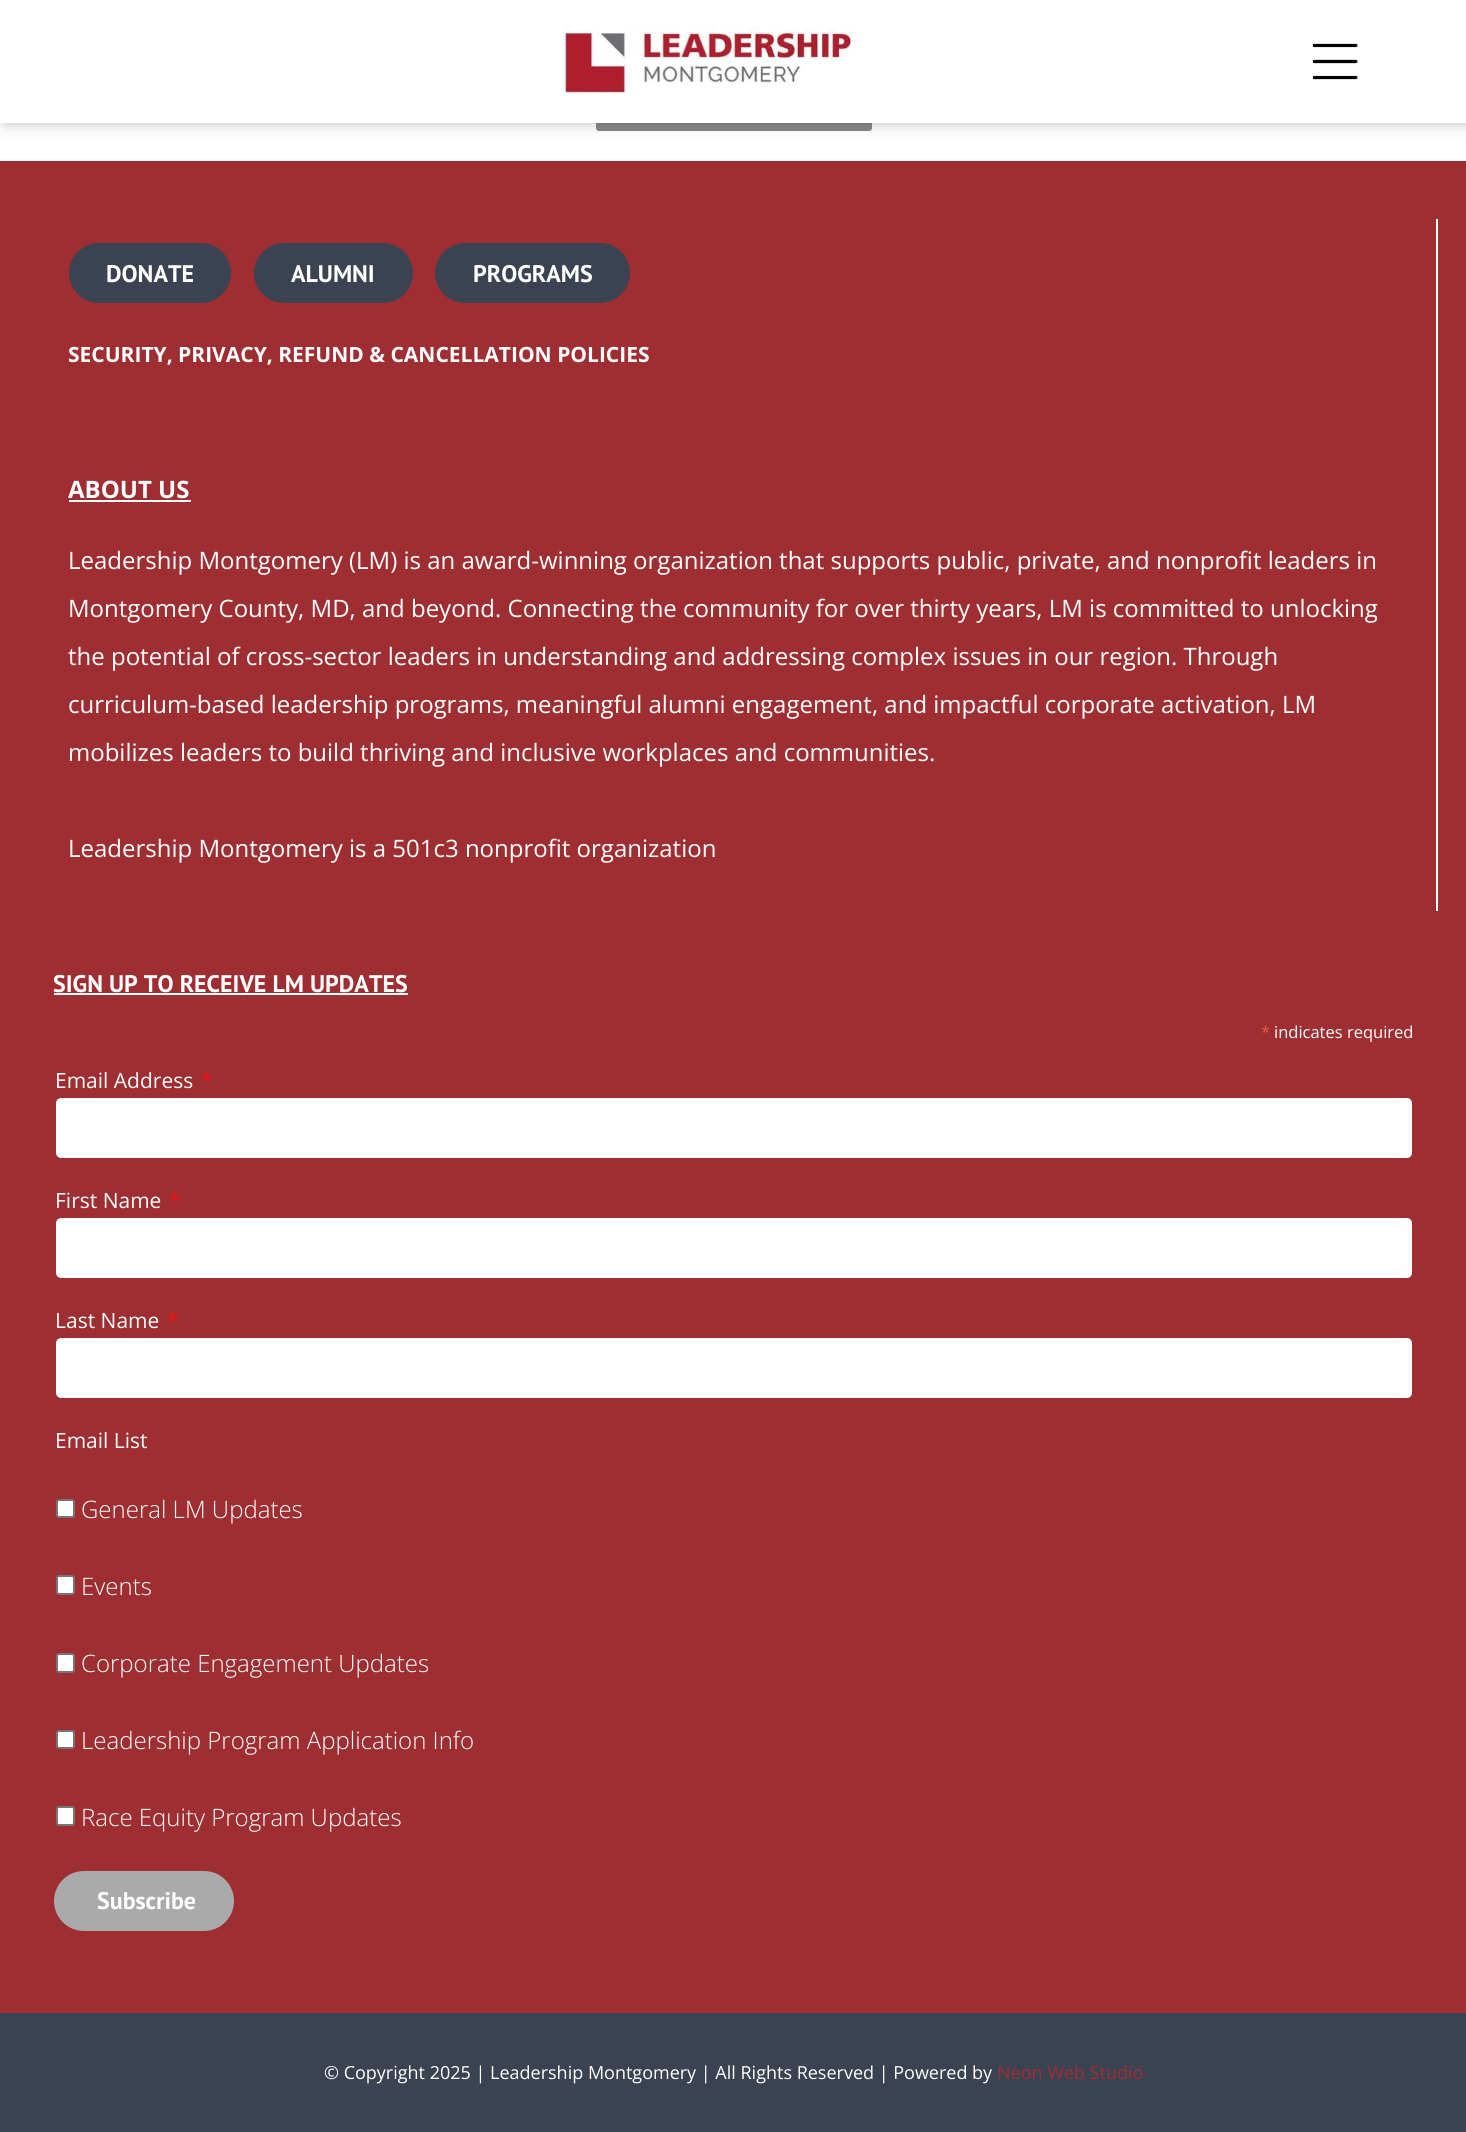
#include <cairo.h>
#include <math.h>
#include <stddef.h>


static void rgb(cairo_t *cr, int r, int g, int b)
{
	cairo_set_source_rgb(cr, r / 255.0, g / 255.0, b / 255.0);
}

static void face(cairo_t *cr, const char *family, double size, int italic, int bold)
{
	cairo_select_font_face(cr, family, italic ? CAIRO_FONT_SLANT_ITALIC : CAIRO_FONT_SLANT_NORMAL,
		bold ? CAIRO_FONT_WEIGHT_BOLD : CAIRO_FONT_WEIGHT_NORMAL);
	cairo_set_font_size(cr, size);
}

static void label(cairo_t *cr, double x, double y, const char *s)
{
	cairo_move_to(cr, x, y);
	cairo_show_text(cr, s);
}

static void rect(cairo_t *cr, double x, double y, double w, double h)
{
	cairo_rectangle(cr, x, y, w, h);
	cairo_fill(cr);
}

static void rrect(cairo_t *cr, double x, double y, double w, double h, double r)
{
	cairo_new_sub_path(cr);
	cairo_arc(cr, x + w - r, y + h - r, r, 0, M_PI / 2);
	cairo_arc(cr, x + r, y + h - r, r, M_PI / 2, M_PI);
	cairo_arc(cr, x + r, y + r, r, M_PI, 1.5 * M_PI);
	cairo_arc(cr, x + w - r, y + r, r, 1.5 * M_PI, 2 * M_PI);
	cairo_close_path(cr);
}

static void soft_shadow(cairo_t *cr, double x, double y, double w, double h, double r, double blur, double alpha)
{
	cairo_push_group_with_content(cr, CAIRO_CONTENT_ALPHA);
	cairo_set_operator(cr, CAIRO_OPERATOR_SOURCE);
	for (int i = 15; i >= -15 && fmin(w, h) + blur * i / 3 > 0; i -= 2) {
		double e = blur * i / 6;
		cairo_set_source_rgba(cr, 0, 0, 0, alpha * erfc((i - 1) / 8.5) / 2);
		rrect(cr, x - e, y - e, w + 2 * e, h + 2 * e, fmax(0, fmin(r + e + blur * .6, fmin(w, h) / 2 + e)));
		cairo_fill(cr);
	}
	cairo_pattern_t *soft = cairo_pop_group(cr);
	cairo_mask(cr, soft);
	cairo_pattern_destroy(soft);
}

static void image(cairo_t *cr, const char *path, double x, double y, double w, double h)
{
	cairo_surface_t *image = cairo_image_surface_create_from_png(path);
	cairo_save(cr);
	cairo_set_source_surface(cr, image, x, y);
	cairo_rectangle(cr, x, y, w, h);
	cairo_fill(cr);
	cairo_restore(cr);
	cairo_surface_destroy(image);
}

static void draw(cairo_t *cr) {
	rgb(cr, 255, 255, 255);
	cairo_paint(cr);
	rgb(cr, 137, 137, 137);
	rrect(cr, 596, 75, 276, 56, 3);
	cairo_fill(cr);
	rgb(cr, 0, 0, 0);
	soft_shadow(cr, 5, 0, 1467, 123, 0, 8, 0.25);
	rgb(cr, 255, 255, 255);
	rect(cr, 0, 0, 1466, 123);
	image(cr, "image0.png", 564, 26, 288, 68);
	image(cr, "image1.png", 1313, 43, 45, 37);
	rgb(cr, 159, 46, 50);
	rect(cr, 0, 161, 1466, 1852);
	rgb(cr, 255, 255, 255);
	rect(cr, 1436, 219, 2, 692);
	rgb(cr, 59, 66, 81);
	rrect(cr, 69, 243, 162, 60, 30);
	cairo_fill(cr);
	face(cr, "PT Sans", 24, 0, 1);
	rgb(cr, 255, 255, 255);
	label(cr, 106, 282, "DONATE");
	rgb(cr, 59, 66, 81);
	rrect(cr, 254, 243, 159, 60, 30);
	cairo_fill(cr);
	rgb(cr, 255, 255, 255);
	label(cr, 291, 282, "ALUMNI");
	rgb(cr, 59, 66, 81);
	rrect(cr, 435, 243, 195, 60, 30);
	cairo_fill(cr);
	rgb(cr, 255, 255, 255);
	label(cr, 473, 282, "PROGRAMS");
	face(cr, "Open Sans", 21, 0, 1);
	label(cr, 68, 362, "SECURITY, PRIVACY, REFUND & CANCELLATION POLICIES");
	face(cr, "Open Sans", 24, 0, 1);
	label(cr, 68, 498, "ABOUT US");
	rect(cr, 69, 500, 122, 2);
	face(cr, "Open Sans", 24, 0, 0);
	label(cr, 68, 569, "Leadership Montgomery (LM) is an award-winning organization that supports public, private, and nonprofit leaders in");
	label(cr, 68, 617, "Montgomery County, MD, and beyond. Connecting the community for over thirty years, LM is committed to unlocking");
	label(cr, 68, 665, "the potential of cross-sector leaders in understanding and addressing complex issues in our region. Through");
	label(cr, 68, 713, "curriculum-based leadership programs, meaningful alumni engagement, and impactful corporate activation, LM");
	label(cr, 68, 761, "mobilizes leaders to build thriving and inclusive workplaces and communities.");
	label(cr, 68, 857, "Leadership Montgomery is a 501c3 nonprofit organization");
	face(cr, "PT Sans", 24, 0, 1);
	label(cr, 53, 992, "SIGN UP TO RECEIVE LM UPDATES");
	rect(cr, 54, 993, 354, 2);
	face(cr, "Open Sans", 16.5, 0, 0);
	rgb(cr, 232, 90, 65);
	label(cr, 1261, 1038, "*");
	rgb(cr, 255, 255, 255);
	label(cr, 1274, 1038, "indicates required");
	face(cr, "Open Sans", 21, 0, 0);
	label(cr, 55, 1088, "Email Address");
	rgb(cr, 241, 17, 17);
	label(cr, 201, 1088, "*");
	rgb(cr, 255, 255, 255);
	rrect(cr, 57.5, 1099.5, 1353, 57, 3.5);
	cairo_fill_preserve(cr);
	cairo_set_line_width(cr, 3);
	cairo_stroke(cr);
	label(cr, 55, 1208, "First Name");
	rgb(cr, 241, 17, 17);
	label(cr, 169, 1208, "*");
	rgb(cr, 255, 255, 255);
	rrect(cr, 57.5, 1219.5, 1353, 57, 3.5);
	cairo_fill_preserve(cr);
	cairo_stroke(cr);
	label(cr, 55, 1328, "Last Name");
	rgb(cr, 241, 17, 17);
	label(cr, 167, 1328, "*");
	rgb(cr, 255, 255, 255);
	rrect(cr, 57.5, 1339.5, 1353, 57, 3.5);
	cairo_fill_preserve(cr);
	cairo_stroke(cr);
	label(cr, 55, 1448, "Email List");
	rrect(cr, 57, 1500, 17, 17, 2);
	cairo_fill_preserve(cr);
	rgb(cr, 118, 118, 118);
	cairo_set_line_width(cr, 2);
	cairo_stroke(cr);
	face(cr, "Open Sans Light", 24, 0, 0);
	rgb(cr, 255, 255, 255);
	label(cr, 81, 1518, "General LM Updates");
	rrect(cr, 57, 1576, 17, 18, 2);
	cairo_fill_preserve(cr);
	rgb(cr, 118, 118, 118);
	cairo_stroke(cr);
	rgb(cr, 255, 255, 255);
	label(cr, 81, 1595, "Events");
	rrect(cr, 57, 1654, 17, 18, 2);
	cairo_fill_preserve(cr);
	rgb(cr, 118, 118, 118);
	cairo_stroke(cr);
	rgb(cr, 255, 255, 255);
	label(cr, 81, 1672, "Corporate Engagement Updates");
	rrect(cr, 57, 1731, 17, 17, 2);
	cairo_fill_preserve(cr);
	rgb(cr, 118, 118, 118);
	cairo_stroke(cr);
	rgb(cr, 255, 255, 255);
	label(cr, 81, 1749, "Leadership Program Application Info");
	rrect(cr, 57, 1807, 17, 18, 2);
	cairo_fill_preserve(cr);
	rgb(cr, 118, 118, 118);
	cairo_stroke(cr);
	rgb(cr, 255, 255, 255);
	label(cr, 81, 1826, "Race Equity Program Updates");
	rgb(cr, 170, 170, 170);
	rrect(cr, 54, 1871, 180, 60, 30);
	cairo_fill(cr);
	face(cr, "PT Sans", 24, 0, 1);
	rgb(cr, 255, 255, 255);
	label(cr, 97, 1909, "Subscribe");
	rgb(cr, 59, 66, 81);
	rect(cr, 0, 2013, 1466, 119);
	face(cr, "Open Sans", 18, 0, 0);
	rgb(cr, 255, 255, 255);
	label(cr, 324, 2079, "© Copyright 2025 | Leadership Montgomery | All Rights Reserved | Powered by");
	rgb(cr, 159, 46, 50);
	label(cr, 997, 2079, "Neon Web Studio");
}

int main(void) {
	cairo_surface_t *surface = cairo_image_surface_create(CAIRO_FORMAT_RGB24, 1466, 2132);
	cairo_t *cr = cairo_create(surface);
	cairo_font_options_t *options = cairo_font_options_create();
	cairo_font_options_set_hint_metrics(options, CAIRO_HINT_METRICS_OFF);
	cairo_font_options_set_hint_style(options, CAIRO_HINT_STYLE_NONE);
	cairo_set_font_options(cr, options);
	cairo_set_miter_limit(cr, 4);
	draw(cr);
	cairo_surface_write_to_png(surface, "render.png");
	cairo_font_options_destroy(options);
	cairo_destroy(cr);
	cairo_surface_destroy(surface);
	return 0;
}
